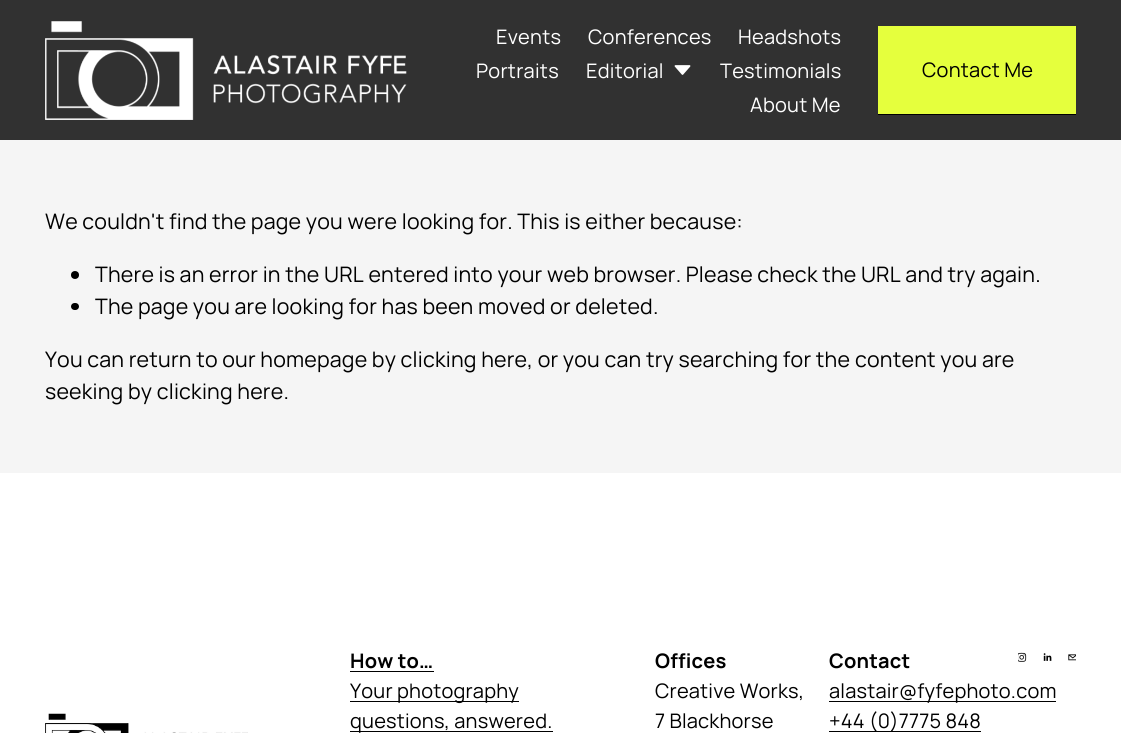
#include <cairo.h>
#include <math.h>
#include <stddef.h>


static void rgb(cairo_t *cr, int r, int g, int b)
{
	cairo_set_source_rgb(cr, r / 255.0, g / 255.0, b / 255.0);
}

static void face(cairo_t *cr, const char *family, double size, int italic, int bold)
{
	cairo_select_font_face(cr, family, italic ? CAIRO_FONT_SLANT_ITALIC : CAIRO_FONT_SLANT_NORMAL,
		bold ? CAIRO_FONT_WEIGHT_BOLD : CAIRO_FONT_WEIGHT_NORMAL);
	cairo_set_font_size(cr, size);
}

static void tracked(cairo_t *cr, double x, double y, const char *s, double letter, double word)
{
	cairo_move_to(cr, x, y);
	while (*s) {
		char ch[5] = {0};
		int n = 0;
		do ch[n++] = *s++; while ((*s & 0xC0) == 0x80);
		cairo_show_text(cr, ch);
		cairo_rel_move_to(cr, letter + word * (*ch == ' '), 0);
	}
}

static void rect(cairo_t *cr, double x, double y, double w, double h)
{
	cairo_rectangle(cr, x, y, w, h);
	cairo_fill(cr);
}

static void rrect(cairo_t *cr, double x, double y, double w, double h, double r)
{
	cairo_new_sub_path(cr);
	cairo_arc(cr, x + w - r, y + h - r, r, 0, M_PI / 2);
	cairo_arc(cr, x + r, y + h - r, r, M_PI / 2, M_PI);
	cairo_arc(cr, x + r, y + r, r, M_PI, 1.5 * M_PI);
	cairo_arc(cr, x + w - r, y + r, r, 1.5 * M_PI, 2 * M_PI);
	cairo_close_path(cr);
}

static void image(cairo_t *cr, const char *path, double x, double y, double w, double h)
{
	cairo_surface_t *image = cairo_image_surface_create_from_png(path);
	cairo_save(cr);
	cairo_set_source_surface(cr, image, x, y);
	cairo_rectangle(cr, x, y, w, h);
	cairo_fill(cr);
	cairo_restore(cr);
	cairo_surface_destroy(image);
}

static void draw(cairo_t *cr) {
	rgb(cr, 245, 245, 245);
	cairo_paint(cr);
	rgb(cr, 49, 49, 49);
	rect(cr, 0, 0, 1121, 140);
	image(cr, "image0.png", 45, 21, 362, 99);
	face(cr, "Manrope", 20, 0, 0);
	rgb(cr, 255, 255, 255);
	tracked(cr, 496, 44, "Events", 0.25, 0);
	tracked(cr, 588, 44, "Conferences", 0.25, 0);
	tracked(cr, 738, 44, "Headshots", 0.25, 0);
	tracked(cr, 476, 78, "Portraits", 0.25, 0);
	tracked(cr, 586, 78, "Editorial", 0.25, 0);
	cairo_new_path(cr);
	cairo_move_to(cr, 689.5, 66);
	cairo_line_to(cr, 682.5, 74);
	cairo_line_to(cr, 675.5, 66);
	cairo_close_path(cr);
	cairo_fill_preserve(cr);
	cairo_set_line_width(cr, 1.8);
	cairo_set_line_cap(cr, CAIRO_LINE_CAP_ROUND);
	cairo_set_line_join(cr, CAIRO_LINE_JOIN_ROUND);
	cairo_stroke(cr);
	tracked(cr, 720, 78, "Testimonials", 0.25, 0);
	tracked(cr, 750, 112, "About Me", 0.25, 0);
	rgb(cr, 229, 255, 61);
	rect(cr, 878, 26, 198, 88);
	rgb(cr, 0, 0, 0);
	rect(cr, 878, 114, 198, 1);
	tracked(cr, 922, 77, "Contact Me", 0.25, 0);
	face(cr, "Manrope", 21.35, 0, 0);
	tracked(cr, 45, 229, "We couldn't find the page you were looking for. This is either because:", 0.2, 0);
	cairo_new_path(cr);
	cairo_arc(cr, 75, 275, 4, 0, 2 * M_PI);
	cairo_fill(cr);
	tracked(cr, 95, 282, "There is an error in the URL entered into your web browser. Please check the URL and try again.", 0.2, 0);
	rrect(cr, 71, 303, 8, 7, 3.5);
	cairo_fill(cr);
	tracked(cr, 95, 314, "The page you are looking for has been moved or deleted.", 0.2, 0);
	tracked(cr, 45, 367, "You can return to our homepage by clicking here, or you can try searching for the", 0.2, 0);
	tracked(cr, 855, 367, "content you are", 0.2, 0);
	tracked(cr, 45, 399, "seeking by clicking here.", 0.2, 0);
	rgb(cr, 255, 255, 255);
	rect(cr, 0, 473, 1121, 260);
	face(cr, "Manrope", 20, 0, 1);
	rgb(cr, 0, 0, 0);
	tracked(cr, 350, 668, "How to…", 0.2, 0);
	rect(cr, 350, 671, 84, 1);
	rect(cr, 350, 701, 169, 1);
	face(cr, "Manrope", 20, 0, 0);
	tracked(cr, 350, 698, "Your photography", 0.2, 0);
	rect(cr, 350, 731, 203, 1);
	tracked(cr, 350, 728, "questions, answered.", 0.2, 0);
	face(cr, "Manrope", 20, 0, 1);
	tracked(cr, 655, 668, "Offices", 0.2, 0);
	face(cr, "Manrope", 20, 0, 0);
	tracked(cr, 655, 698, "Creative Works,", 0.2, 0);
	tracked(cr, 655, 728, "7 Blackhorse", 0.2, 0);
	image(cr, "image1.png", 1018, 652, 9, 10);
	image(cr, "image2.png", 1043, 653, 9, 8);
	image(cr, "image3.png", 1068, 654, 8, 7);
	image(cr, "image4.png", 45, 713, 203, 20);
	face(cr, "Manrope", 20, 0, 1);
	tracked(cr, 829, 668, "Contact", 0.2, 0);
	rect(cr, 829, 701, 227, 1);
	face(cr, "Manrope", 20, 0, 0);
	tracked(cr, 829, 698, "alastair@fyfephoto.com", 0.2, 0);
	tracked(cr, 829, 728, "+44 (0)7775 848", 0.2, 0);
	rect(cr, 829, 731, 152, 1);
}

int main(void) {
	cairo_surface_t *surface = cairo_image_surface_create(CAIRO_FORMAT_RGB24, 1121, 733);
	cairo_t *cr = cairo_create(surface);
	cairo_font_options_t *options = cairo_font_options_create();
	cairo_font_options_set_hint_metrics(options, CAIRO_HINT_METRICS_OFF);
	cairo_font_options_set_hint_style(options, CAIRO_HINT_STYLE_NONE);
	cairo_set_font_options(cr, options);
	cairo_set_miter_limit(cr, 4);
	draw(cr);
	cairo_surface_write_to_png(surface, "render.png");
	cairo_font_options_destroy(options);
	cairo_destroy(cr);
	cairo_surface_destroy(surface);
	return 0;
}
